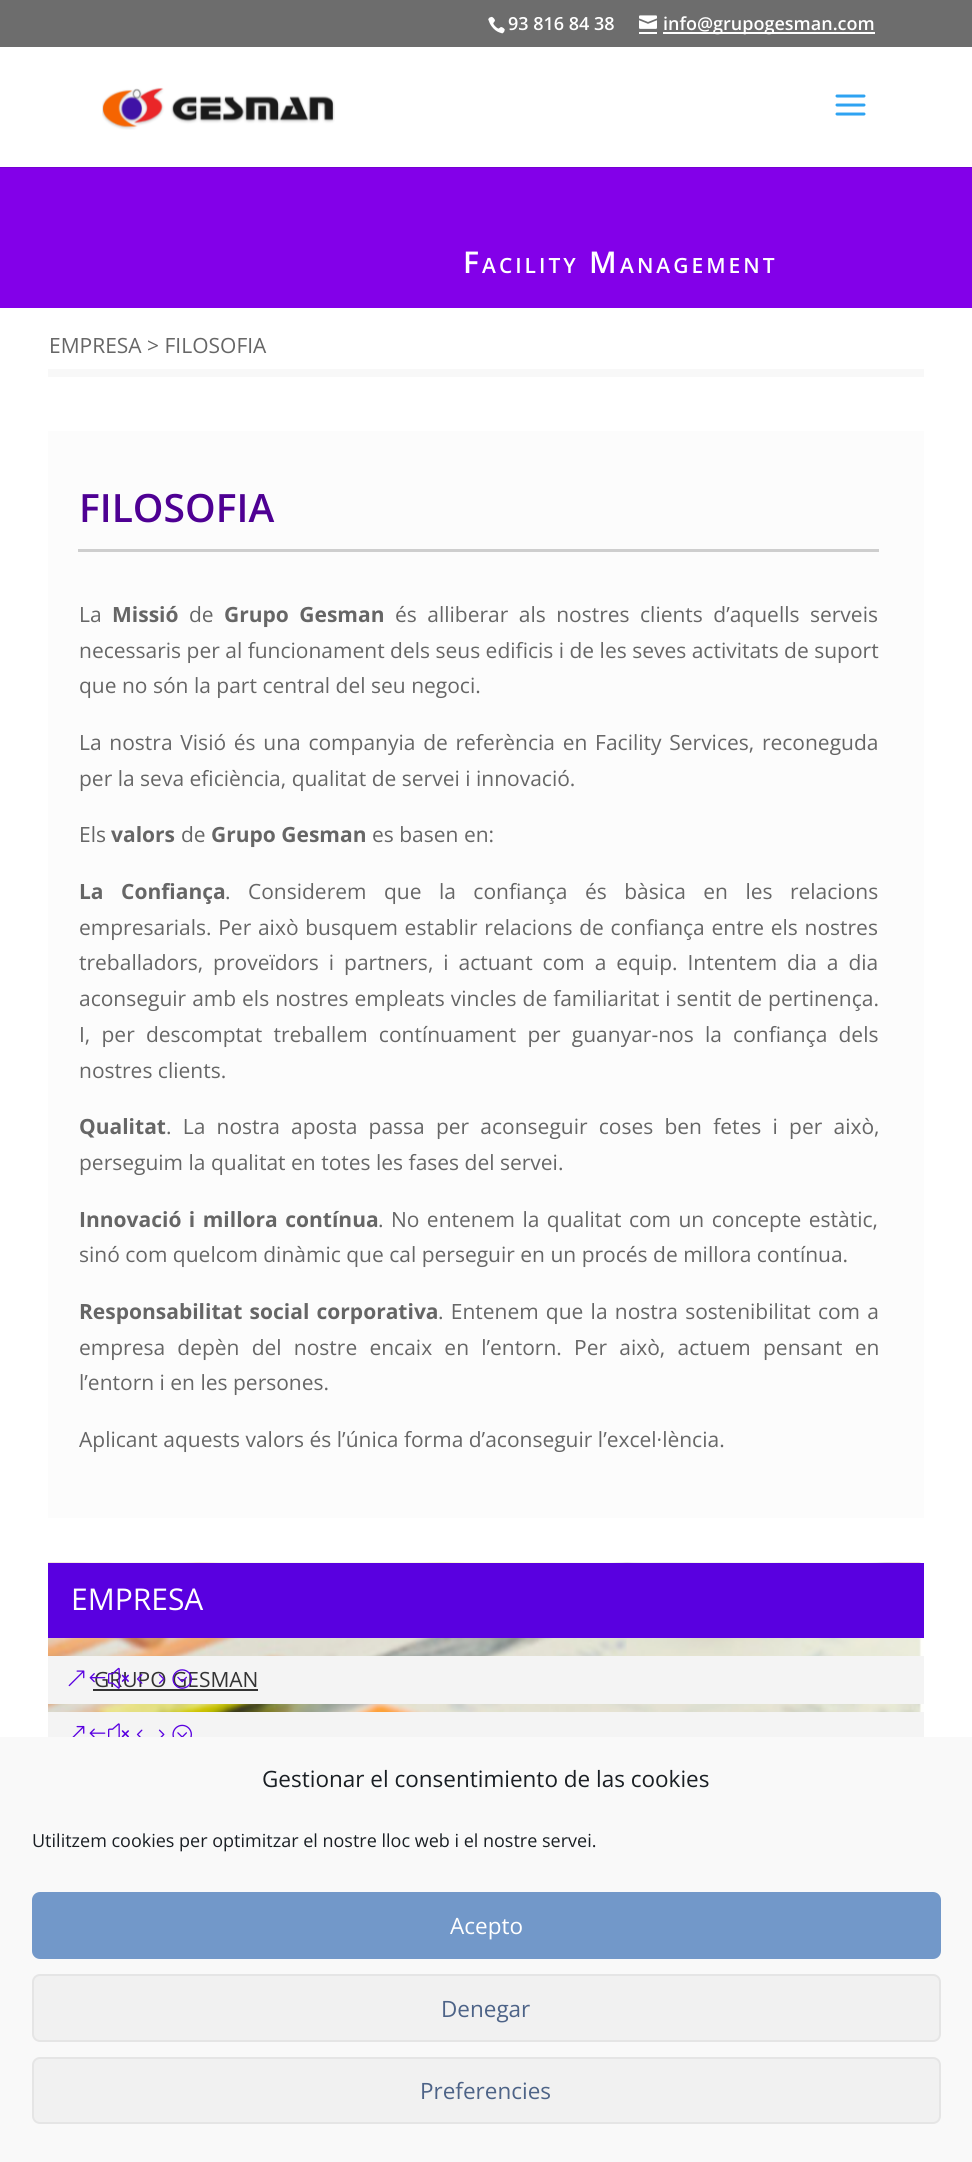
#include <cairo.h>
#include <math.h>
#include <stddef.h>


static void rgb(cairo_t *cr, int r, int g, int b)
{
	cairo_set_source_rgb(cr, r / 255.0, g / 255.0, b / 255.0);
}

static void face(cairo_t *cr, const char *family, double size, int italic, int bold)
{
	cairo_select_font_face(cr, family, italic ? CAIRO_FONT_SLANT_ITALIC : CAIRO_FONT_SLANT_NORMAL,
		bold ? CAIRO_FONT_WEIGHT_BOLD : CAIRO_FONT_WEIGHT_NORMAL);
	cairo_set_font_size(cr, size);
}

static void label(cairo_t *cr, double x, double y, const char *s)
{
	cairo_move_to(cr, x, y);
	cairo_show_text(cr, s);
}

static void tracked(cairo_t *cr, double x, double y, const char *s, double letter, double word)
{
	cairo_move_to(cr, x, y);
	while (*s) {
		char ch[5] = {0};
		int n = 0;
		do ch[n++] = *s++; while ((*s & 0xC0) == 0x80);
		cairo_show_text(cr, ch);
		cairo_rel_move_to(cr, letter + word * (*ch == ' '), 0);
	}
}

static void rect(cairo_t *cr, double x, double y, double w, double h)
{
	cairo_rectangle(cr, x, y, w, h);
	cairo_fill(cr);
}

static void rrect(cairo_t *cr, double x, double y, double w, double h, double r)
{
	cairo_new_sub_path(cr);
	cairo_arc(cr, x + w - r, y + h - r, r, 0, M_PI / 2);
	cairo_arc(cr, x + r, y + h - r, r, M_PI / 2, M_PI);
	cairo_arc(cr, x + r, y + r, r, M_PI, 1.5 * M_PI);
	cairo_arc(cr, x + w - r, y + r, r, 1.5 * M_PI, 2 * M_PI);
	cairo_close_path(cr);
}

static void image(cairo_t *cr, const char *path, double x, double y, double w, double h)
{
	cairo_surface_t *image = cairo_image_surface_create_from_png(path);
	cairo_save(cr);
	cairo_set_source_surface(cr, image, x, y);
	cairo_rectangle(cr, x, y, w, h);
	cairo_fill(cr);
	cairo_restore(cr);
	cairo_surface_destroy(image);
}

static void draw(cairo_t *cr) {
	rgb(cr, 255, 255, 255);
	cairo_paint(cr);
	rgb(cr, 109, 109, 109);
	rect(cr, 0, 0, 972, 47);
	image(cr, "image0.png", 488, 16, 17, 18);
	face(cr, "Open Sans SemiBold", 18, 0, 0);
	rgb(cr, 255, 255, 255);
	label(cr, 508, 30, "93 816 84 38");
	image(cr, "image1.png", 639, 15, 18, 14);
	rect(cr, 663, 32, 212, 2);
	label(cr, 663, 30, "info@grupogesman.com");
	rect(cr, 639, 32, 18, 2);
	rgb(cr, 118, 0, 210);
	rect(cr, 0, 167, 972, 1);
	image(cr, "image2.png", 102, 87, 233, 43);
	image(cr, "image3.png", 835, 94, 31, 22);
	rgb(cr, 131, 0, 233);
	rect(cr, 0, 168, 972, 140);
	face(cr, "Open Sans SemiBold", 30, 0, 0);
	rgb(cr, 255, 255, 255);
	tracked(cr, 463, 273, "F", 3, 0);
	face(cr, "Open Sans SemiBold", 21, 0, 0);
	tracked(cr, 482, 273, "ACILITY", 3, 0);
	face(cr, "Open Sans SemiBold", 30, 0, 0);
	tracked(cr, 589, 273, "M", 3, 0);
	face(cr, "Open Sans SemiBold", 21, 0, 0);
	tracked(cr, 620, 273, "ANAGEMENT", 3, 0);
	rgb(cr, 248, 248, 248);
	rect(cr, 48, 369, 876, 8);
	face(cr, "Open Sans", 21, 0, 0);
	rgb(cr, 102, 102, 102);
	label(cr, 49, 353, "EMPRESA > FILOSOFIA");
	rgb(cr, 252, 252, 252);
	rect(cr, 48, 431, 876, 1087);
	rgb(cr, 206, 206, 206);
	rect(cr, 78, 549, 801, 3);
	face(cr, "Open Sans SemiBold", 39, 0, 0);
	rgb(cr, 78, 0, 147);
	label(cr, 79, 522, "FILOSOFIA");
	face(cr, "Open Sans", 21, 0, 0);
	rgb(cr, 102, 102, 102);
	label(cr, 79, 622, "La");
	face(cr, "Open Sans", 21, 0, 1);
	label(cr, 112, 622, "Missió");
	face(cr, "Open Sans", 21, 0, 0);
	label(cr, 189, 622, "de");
	face(cr, "Open Sans", 21, 0, 1);
	tracked(cr, 224, 622, "Grupo Gesman", 0, 5);
	face(cr, "Open Sans", 21, 0, 0);
	tracked(cr, 395, 622, "és alliberar als nostres clients d’aquells serveis", 0, 5);
	label(cr, 79, 658, "necessaris per al funcionament dels seus edificis i de les seves activitats de suport");
	label(cr, 79, 693, "que no són la part central del seu negoci.");
	tracked(cr, 79, 750, "La nostra Visió és una companyia de referència en Facility Services, reconeguda", 0, 2.25);
	label(cr, 79, 786, "per la seva eficiència, qualitat de servei i innovació.");
	label(cr, 79, 842, "Els");
	face(cr, "Open Sans", 21, 0, 1);
	label(cr, 111, 842, "valors");
	face(cr, "Open Sans", 21, 0, 0);
	label(cr, 181, 842, "de");
	face(cr, "Open Sans", 21, 0, 1);
	label(cr, 211, 842, "Grupo Gesman");
	face(cr, "Open Sans", 21, 0, 0);
	label(cr, 372, 842, "es basen en:");
	face(cr, "Open Sans", 21, 0, 1);
	tracked(cr, 79, 899, "La Confiança", 0, 12);
	face(cr, "Open Sans", 21, 0, 0);
	tracked(cr, 225, 899, ". Considerem que la confiança és bàsica en les relacions", 0, 12);
	tracked(cr, 79, 935, "empresarials. Per això busquem establir relacions de confiança entre els nostres", 0, 1.25);
	tracked(cr, 79, 970, "treballadors, proveïdors i partners, i actuant com a equip. Intentem dia a dia", 0, 4.5);
	tracked(cr, 79, 1006, "aconseguir amb els nostres empleats vincles de familiaritat i sentit de pertinença.", 0, 0.5);
	tracked(cr, 79, 1042, "I, per descomptat treballem contínuament per guanyar-nos la confiança dels", 0, 5.75);
	label(cr, 79, 1078, "nostres clients.");
	face(cr, "Open Sans", 21, 0, 1);
	label(cr, 79, 1134, "Qualitat");
	face(cr, "Open Sans", 21, 0, 0);
	tracked(cr, 166, 1134, ". La nostra aposta passa per aconseguir coses ben fetes i per això,", 0, 5.75);
	label(cr, 79, 1170, "perseguim la qualitat en totes les fases del servei.");
	face(cr, "Open Sans", 21, 0, 1);
	tracked(cr, 79, 1227, "Innovació i millora contínua", 0, 2);
	face(cr, "Open Sans", 21, 0, 0);
	tracked(cr, 378, 1227, ". No entenem la qualitat com un concepte estàtic,", 0, 2);
	label(cr, 79, 1262, "sinó com quelcom dinàmic que cal perseguir en un procés de millora contínua.");
	face(cr, "Open Sans", 21, 0, 1);
	tracked(cr, 79, 1319, "Responsabilitat social corporativa", 0, 1.75);
	face(cr, "Open Sans", 21, 0, 0);
	tracked(cr, 438, 1319, ". Entenem que la nostra sostenibilitat com a", 0, 1.75);
	tracked(cr, 79, 1355, "empresa depèn del nostre encaix en l’entorn. Per això, actuem pensant en", 0, 6.75);
	label(cr, 79, 1390, "l’entorn i en les persones.");
	label(cr, 79, 1447, "Aplicant aquests valors és l’única forma d’aconseguir l’excel·lència.");
	image(cr, "image4.png", 48, 1562, 876, 150);
	rgb(cr, 89, 0, 224);
	rect(cr, 48, 1563, 876, 75);
	face(cr, "Open Sans", 30, 0, 0);
	rgb(cr, 255, 255, 255);
	label(cr, 71, 1610, "EMPRESA");
	rgb(cr, 244, 244, 244);
	rect(cr, 48, 1656, 876, 48);
	face(cr, "Open Sans", 21, 0, 0);
	rgb(cr, 51, 51, 51);
	label(cr, 94, 1687, "GRUPO GESMAN");
	image(cr, "image5.png", 68, 1667, 124, 22);
	rect(cr, 93, 1689, 165, 2);
	rgb(cr, 244, 244, 244);
	rect(cr, 48, 1712, 876, 25);
	image(cr, "image6.png", 72, 1723, 120, 14);
	rgb(cr, 249, 249, 249);
	rect(cr, 0, 1737, 972, 425);
	face(cr, "Open Sans", 22.5, 0, 0);
	rgb(cr, 25, 30, 35);
	label(cr, 262, 1787, "Gestionar el consentimiento de las cookies");
	face(cr, "Open Sans", 18, 0, 0);
	label(cr, 32, 1847, "Utilitzem cookies per optimitzar el nostre lloc web i el nostre servei.");
	rgb(cr, 114, 152, 201);
	rrect(cr, 33, 1893, 907, 65, 7);
	cairo_fill_preserve(cr);
	cairo_stroke(cr);
	face(cr, "Open Sans", 22.5, 0, 0);
	rgb(cr, 255, 255, 255);
	label(cr, 450, 1934, "Acepto");
	rgb(cr, 241, 241, 241);
	rrect(cr, 33, 1975, 907, 66, 7);
	cairo_fill_preserve(cr);
	rgb(cr, 229, 229, 229);
	cairo_stroke(cr);
	rgb(cr, 77, 99, 135);
	label(cr, 441, 2017, "Denegar");
	rgb(cr, 241, 241, 241);
	rrect(cr, 33, 2058, 907, 65, 7);
	cairo_fill_preserve(cr);
	rgb(cr, 229, 229, 229);
	cairo_stroke(cr);
	rgb(cr, 77, 99, 135);
	label(cr, 420, 2099, "Preferencies");
}

int main(void) {
	cairo_surface_t *surface = cairo_image_surface_create(CAIRO_FORMAT_RGB24, 972, 2162);
	cairo_t *cr = cairo_create(surface);
	cairo_font_options_t *options = cairo_font_options_create();
	cairo_font_options_set_hint_metrics(options, CAIRO_HINT_METRICS_OFF);
	cairo_font_options_set_hint_style(options, CAIRO_HINT_STYLE_NONE);
	cairo_set_font_options(cr, options);
	cairo_set_miter_limit(cr, 4);
	draw(cr);
	cairo_surface_write_to_png(surface, "render.png");
	cairo_font_options_destroy(options);
	cairo_destroy(cr);
	cairo_surface_destroy(surface);
	return 0;
}
